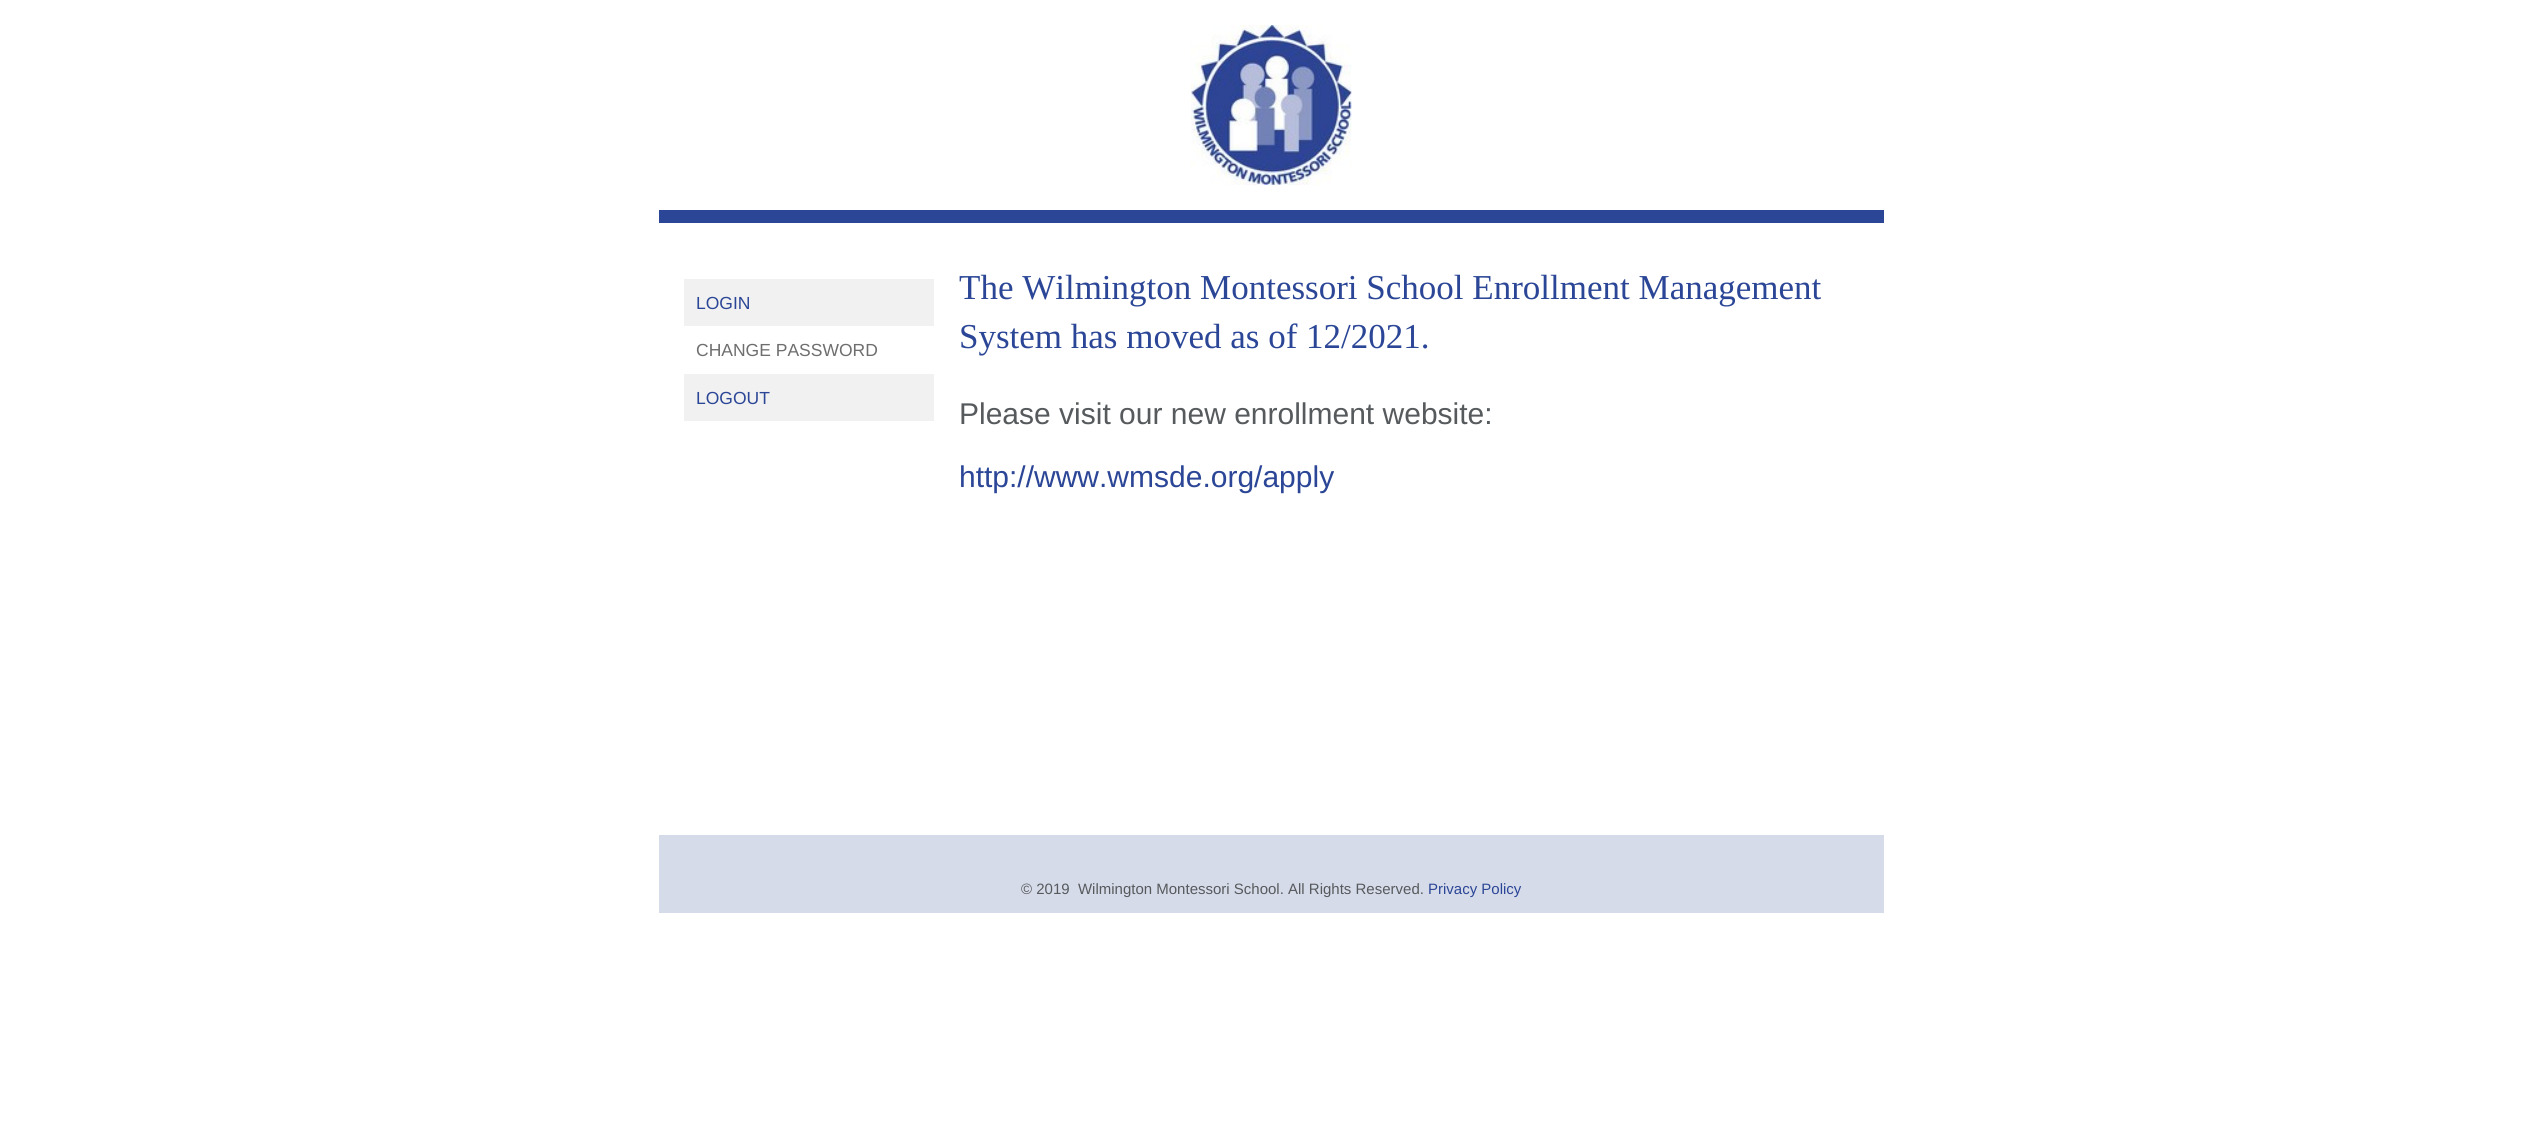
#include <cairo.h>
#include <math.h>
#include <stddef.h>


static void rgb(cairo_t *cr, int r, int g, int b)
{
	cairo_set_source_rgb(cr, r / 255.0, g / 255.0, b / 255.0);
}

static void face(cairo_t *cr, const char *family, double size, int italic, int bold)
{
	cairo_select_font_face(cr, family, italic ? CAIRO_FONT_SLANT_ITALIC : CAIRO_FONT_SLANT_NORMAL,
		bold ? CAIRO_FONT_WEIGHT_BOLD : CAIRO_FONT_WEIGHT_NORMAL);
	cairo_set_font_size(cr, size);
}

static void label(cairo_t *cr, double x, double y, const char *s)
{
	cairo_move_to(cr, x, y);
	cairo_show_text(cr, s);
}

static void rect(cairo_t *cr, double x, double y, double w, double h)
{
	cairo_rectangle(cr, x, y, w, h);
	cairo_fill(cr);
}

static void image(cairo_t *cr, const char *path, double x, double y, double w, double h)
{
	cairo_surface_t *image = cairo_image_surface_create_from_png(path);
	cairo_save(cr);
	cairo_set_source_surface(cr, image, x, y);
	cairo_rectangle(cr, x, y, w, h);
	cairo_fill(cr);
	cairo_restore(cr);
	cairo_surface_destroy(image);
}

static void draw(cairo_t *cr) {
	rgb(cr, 255, 255, 255);
	cairo_paint(cr);
	image(cr, "image0.png", 1191, 25, 161, 160);
	rgb(cr, 43, 70, 150);
	rect(cr, 659, 210, 1225, 13);
	rgb(cr, 241, 241, 241);
	rect(cr, 684, 279, 250, 47);
	face(cr, "Liberation Sans", 17.5, 0, 0);
	rgb(cr, 43, 70, 150);
	label(cr, 696, 309, "LOGIN");
	rgb(cr, 110, 110, 110);
	label(cr, 696, 356, "CHANGE PASSWORD");
	rgb(cr, 241, 241, 241);
	rect(cr, 684, 374, 250, 47);
	rgb(cr, 43, 70, 150);
	label(cr, 696, 404, "LOGOUT");
	face(cr, "Liberation Serif", 35, 0, 0);
	label(cr, 959, 299, "The Wilmington Montessori School Enrollment Management");
	label(cr, 959, 348, "System has moved as of 12/2021.");
	face(cr, "Liberation Sans", 30, 0, 0);
	rgb(cr, 86, 90, 92);
	label(cr, 959, 424, "Please visit our new enrollment website:");
	rgb(cr, 43, 70, 150);
	label(cr, 959, 487, "http://www.wmsde.org/apply");
	rgb(cr, 214, 219, 234);
	rect(cr, 659, 835, 1225, 78);
	face(cr, "Liberation Sans", 15, 0, 0);
	rgb(cr, 86, 90, 92);
	label(cr, 1021, 894, "© 2019  Wilmington Montessori School. All Rights Reserved.");
	rgb(cr, 43, 70, 150);
	label(cr, 1428, 894, "Privacy Policy");
}

int main(void) {
	cairo_surface_t *surface = cairo_image_surface_create(CAIRO_FORMAT_RGB24, 2542, 1123);
	cairo_t *cr = cairo_create(surface);
	cairo_font_options_t *options = cairo_font_options_create();
	cairo_font_options_set_hint_metrics(options, CAIRO_HINT_METRICS_OFF);
	cairo_font_options_set_hint_style(options, CAIRO_HINT_STYLE_NONE);
	cairo_set_font_options(cr, options);
	cairo_set_miter_limit(cr, 4);
	draw(cr);
	cairo_surface_write_to_png(surface, "render.png");
	cairo_font_options_destroy(options);
	cairo_destroy(cr);
	cairo_surface_destroy(surface);
	return 0;
}
